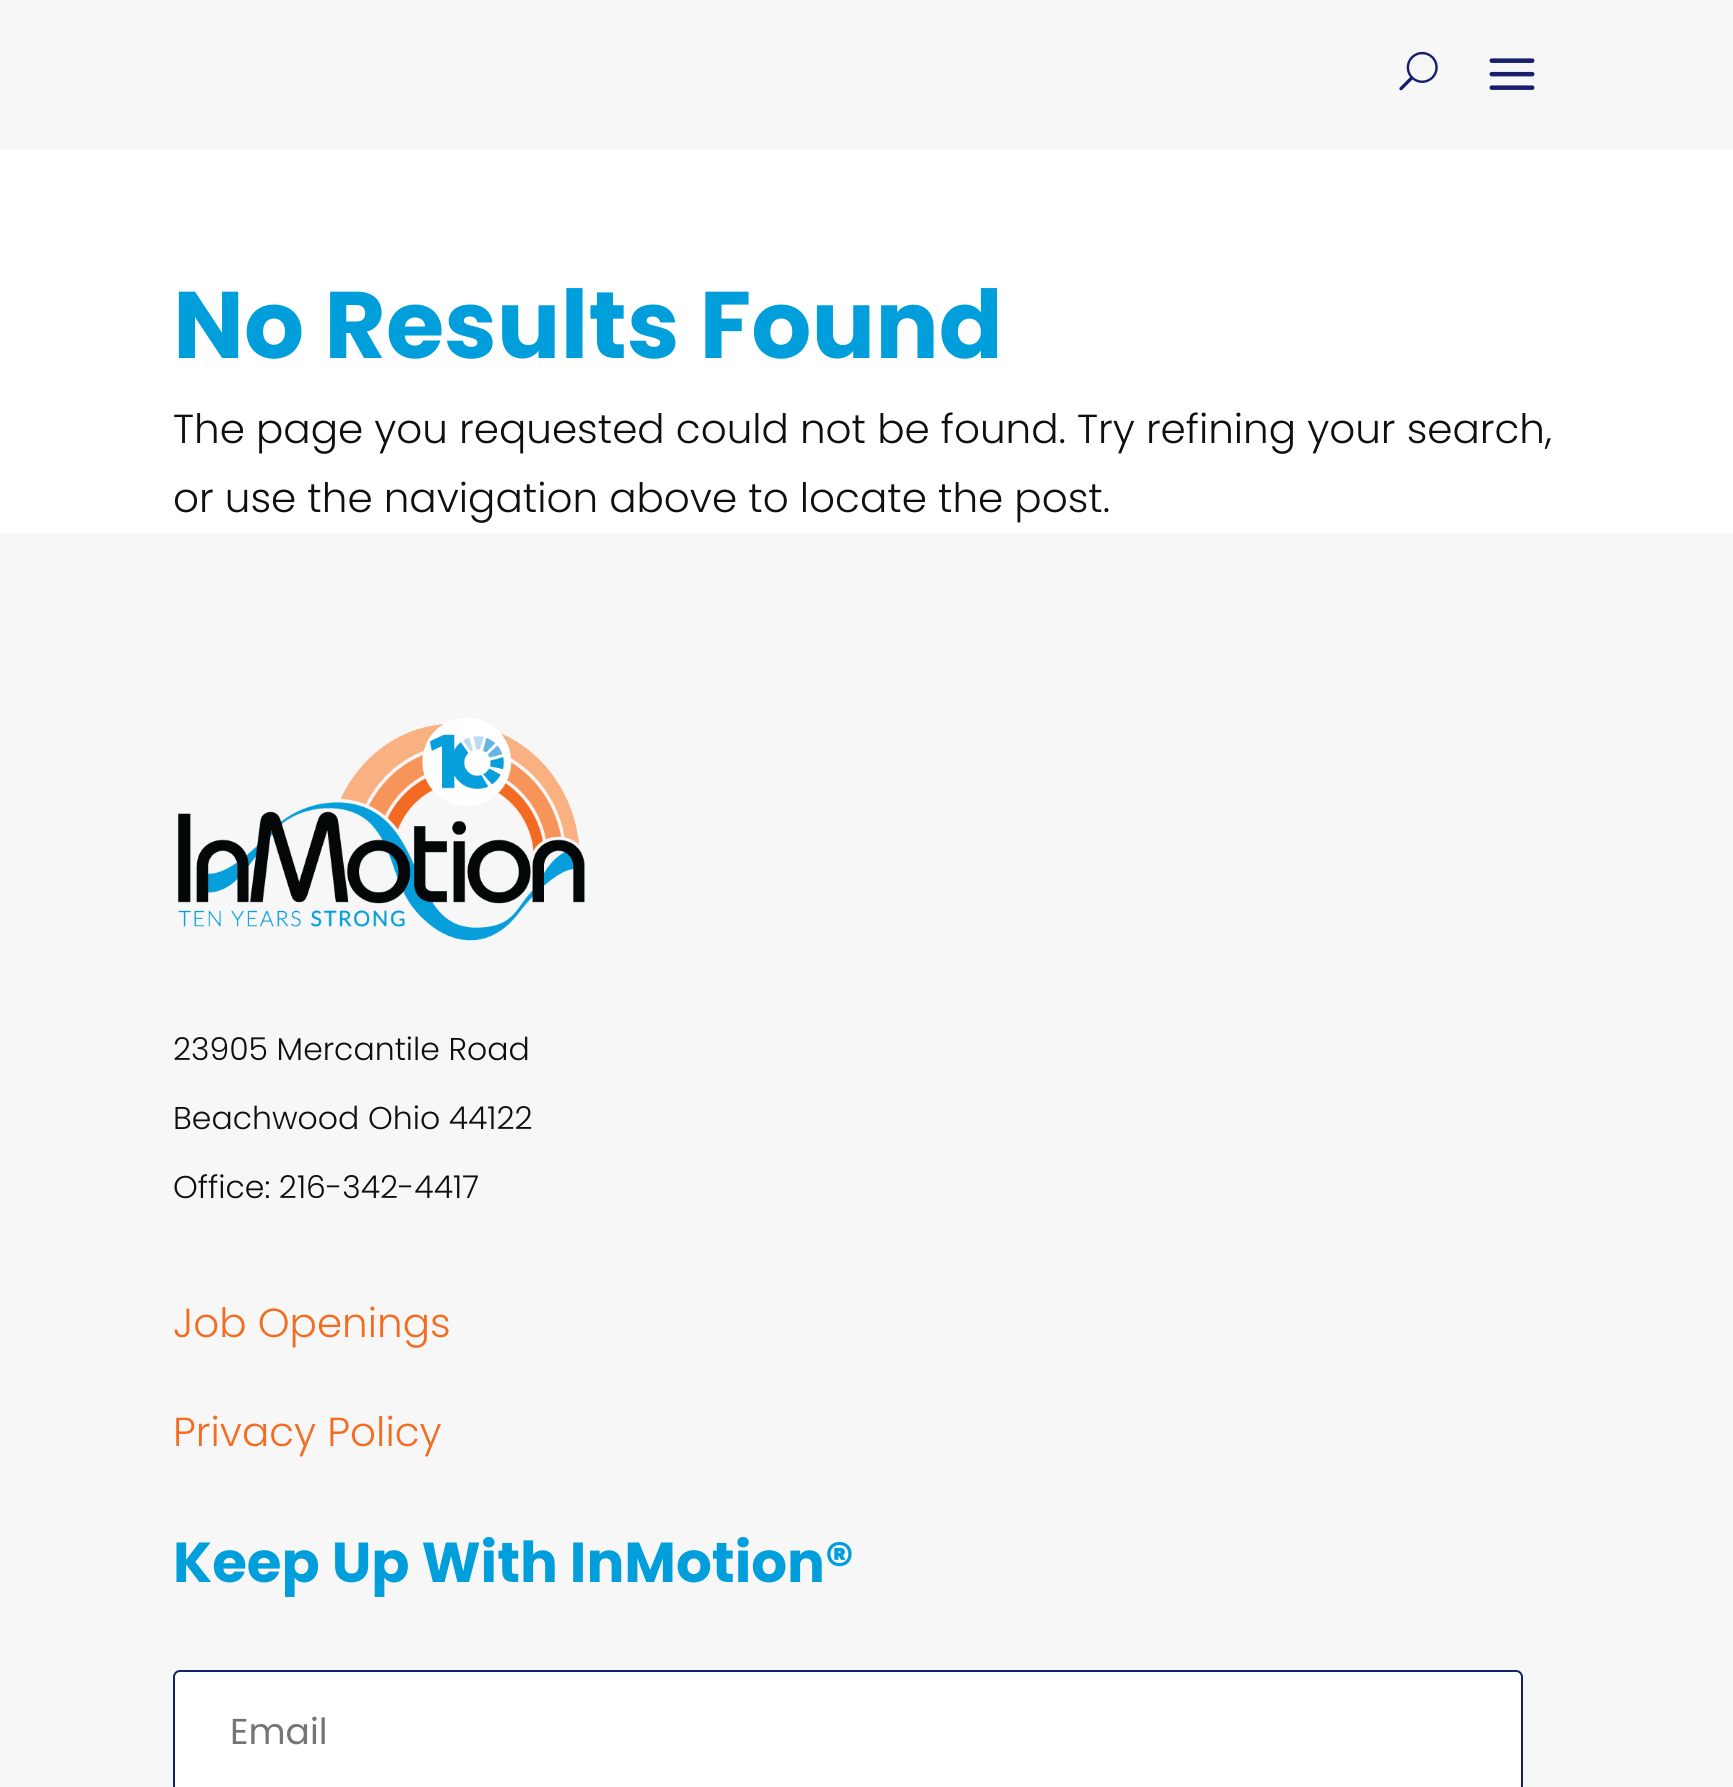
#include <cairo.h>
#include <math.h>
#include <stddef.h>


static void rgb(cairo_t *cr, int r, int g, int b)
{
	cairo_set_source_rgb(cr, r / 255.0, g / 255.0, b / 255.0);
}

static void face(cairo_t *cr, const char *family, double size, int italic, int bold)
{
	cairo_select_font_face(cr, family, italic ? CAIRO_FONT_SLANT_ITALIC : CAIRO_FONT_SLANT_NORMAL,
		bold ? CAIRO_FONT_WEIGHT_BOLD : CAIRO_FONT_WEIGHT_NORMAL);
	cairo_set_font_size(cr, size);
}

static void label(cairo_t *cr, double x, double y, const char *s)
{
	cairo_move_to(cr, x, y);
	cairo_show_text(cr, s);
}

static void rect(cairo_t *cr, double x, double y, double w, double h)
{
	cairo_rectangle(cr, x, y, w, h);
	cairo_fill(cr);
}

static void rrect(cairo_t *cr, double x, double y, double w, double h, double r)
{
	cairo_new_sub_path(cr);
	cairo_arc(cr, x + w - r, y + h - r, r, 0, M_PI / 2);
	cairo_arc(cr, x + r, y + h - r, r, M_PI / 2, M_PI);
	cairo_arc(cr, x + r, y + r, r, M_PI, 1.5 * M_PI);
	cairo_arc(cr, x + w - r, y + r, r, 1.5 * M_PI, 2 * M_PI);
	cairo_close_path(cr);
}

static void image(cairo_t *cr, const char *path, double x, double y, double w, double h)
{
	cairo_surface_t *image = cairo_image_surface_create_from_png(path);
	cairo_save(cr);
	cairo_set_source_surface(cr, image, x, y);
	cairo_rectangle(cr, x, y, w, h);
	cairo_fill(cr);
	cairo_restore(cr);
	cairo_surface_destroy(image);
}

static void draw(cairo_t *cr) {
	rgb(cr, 247, 247, 247);
	cairo_paint(cr);
	image(cr, "image0.png", 1399, 51, 39, 40);
	image(cr, "image1.png", 1489, 58, 46, 32);
	rgb(cr, 255, 255, 255);
	rect(cr, 0, 149, 1733, 384);
	face(cr, "Poppins", 94.5, 0, 1);
	rgb(cr, 0, 158, 219);
	label(cr, 173, 358, "No Results Found");
	face(cr, "Poppins Light", 40.5, 0, 0);
	rgb(cr, 16, 15, 13);
	label(cr, 173, 443, "The page you requested could not be found. Try refining your search,");
	label(cr, 173, 512, "or use the navigation above to locate the post.");
	image(cr, "image2.png", 178, 718, 407, 223);
	face(cr, "Poppins Light", 31.5, 0, 0);
	label(cr, 173, 1060, "23905 Mercantile Road");
	label(cr, 173, 1129, "Beachwood Ohio 44122");
	label(cr, 173, 1198, "Office: 216-342-4417");
	face(cr, "Poppins Light", 40.5, 0, 0);
	rgb(cr, 243, 108, 33);
	label(cr, 173, 1337, "Job Openings");
	label(cr, 173, 1446, "Privacy Policy");
	face(cr, "Poppins", 56.25, 0, 1);
	rgb(cr, 0, 158, 219);
	label(cr, 173, 1582, "Keep Up With InMotion®");
	rgb(cr, 255, 255, 255);
	rrect(cr, 174, 1671, 1348, 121, 6);
	cairo_fill_preserve(cr);
	rgb(cr, 21, 31, 109);
	cairo_stroke(cr);
	face(cr, "Poppins", 36, 0, 0);
	rgb(cr, 117, 117, 117);
	label(cr, 230, 1744, "Email");
}

int main(void) {
	cairo_surface_t *surface = cairo_image_surface_create(CAIRO_FORMAT_RGB24, 1733, 1787);
	cairo_t *cr = cairo_create(surface);
	cairo_font_options_t *options = cairo_font_options_create();
	cairo_font_options_set_hint_metrics(options, CAIRO_HINT_METRICS_OFF);
	cairo_font_options_set_hint_style(options, CAIRO_HINT_STYLE_NONE);
	cairo_set_font_options(cr, options);
	cairo_set_miter_limit(cr, 4);
	draw(cr);
	cairo_surface_write_to_png(surface, "render.png");
	cairo_font_options_destroy(options);
	cairo_destroy(cr);
	cairo_surface_destroy(surface);
	return 0;
}
